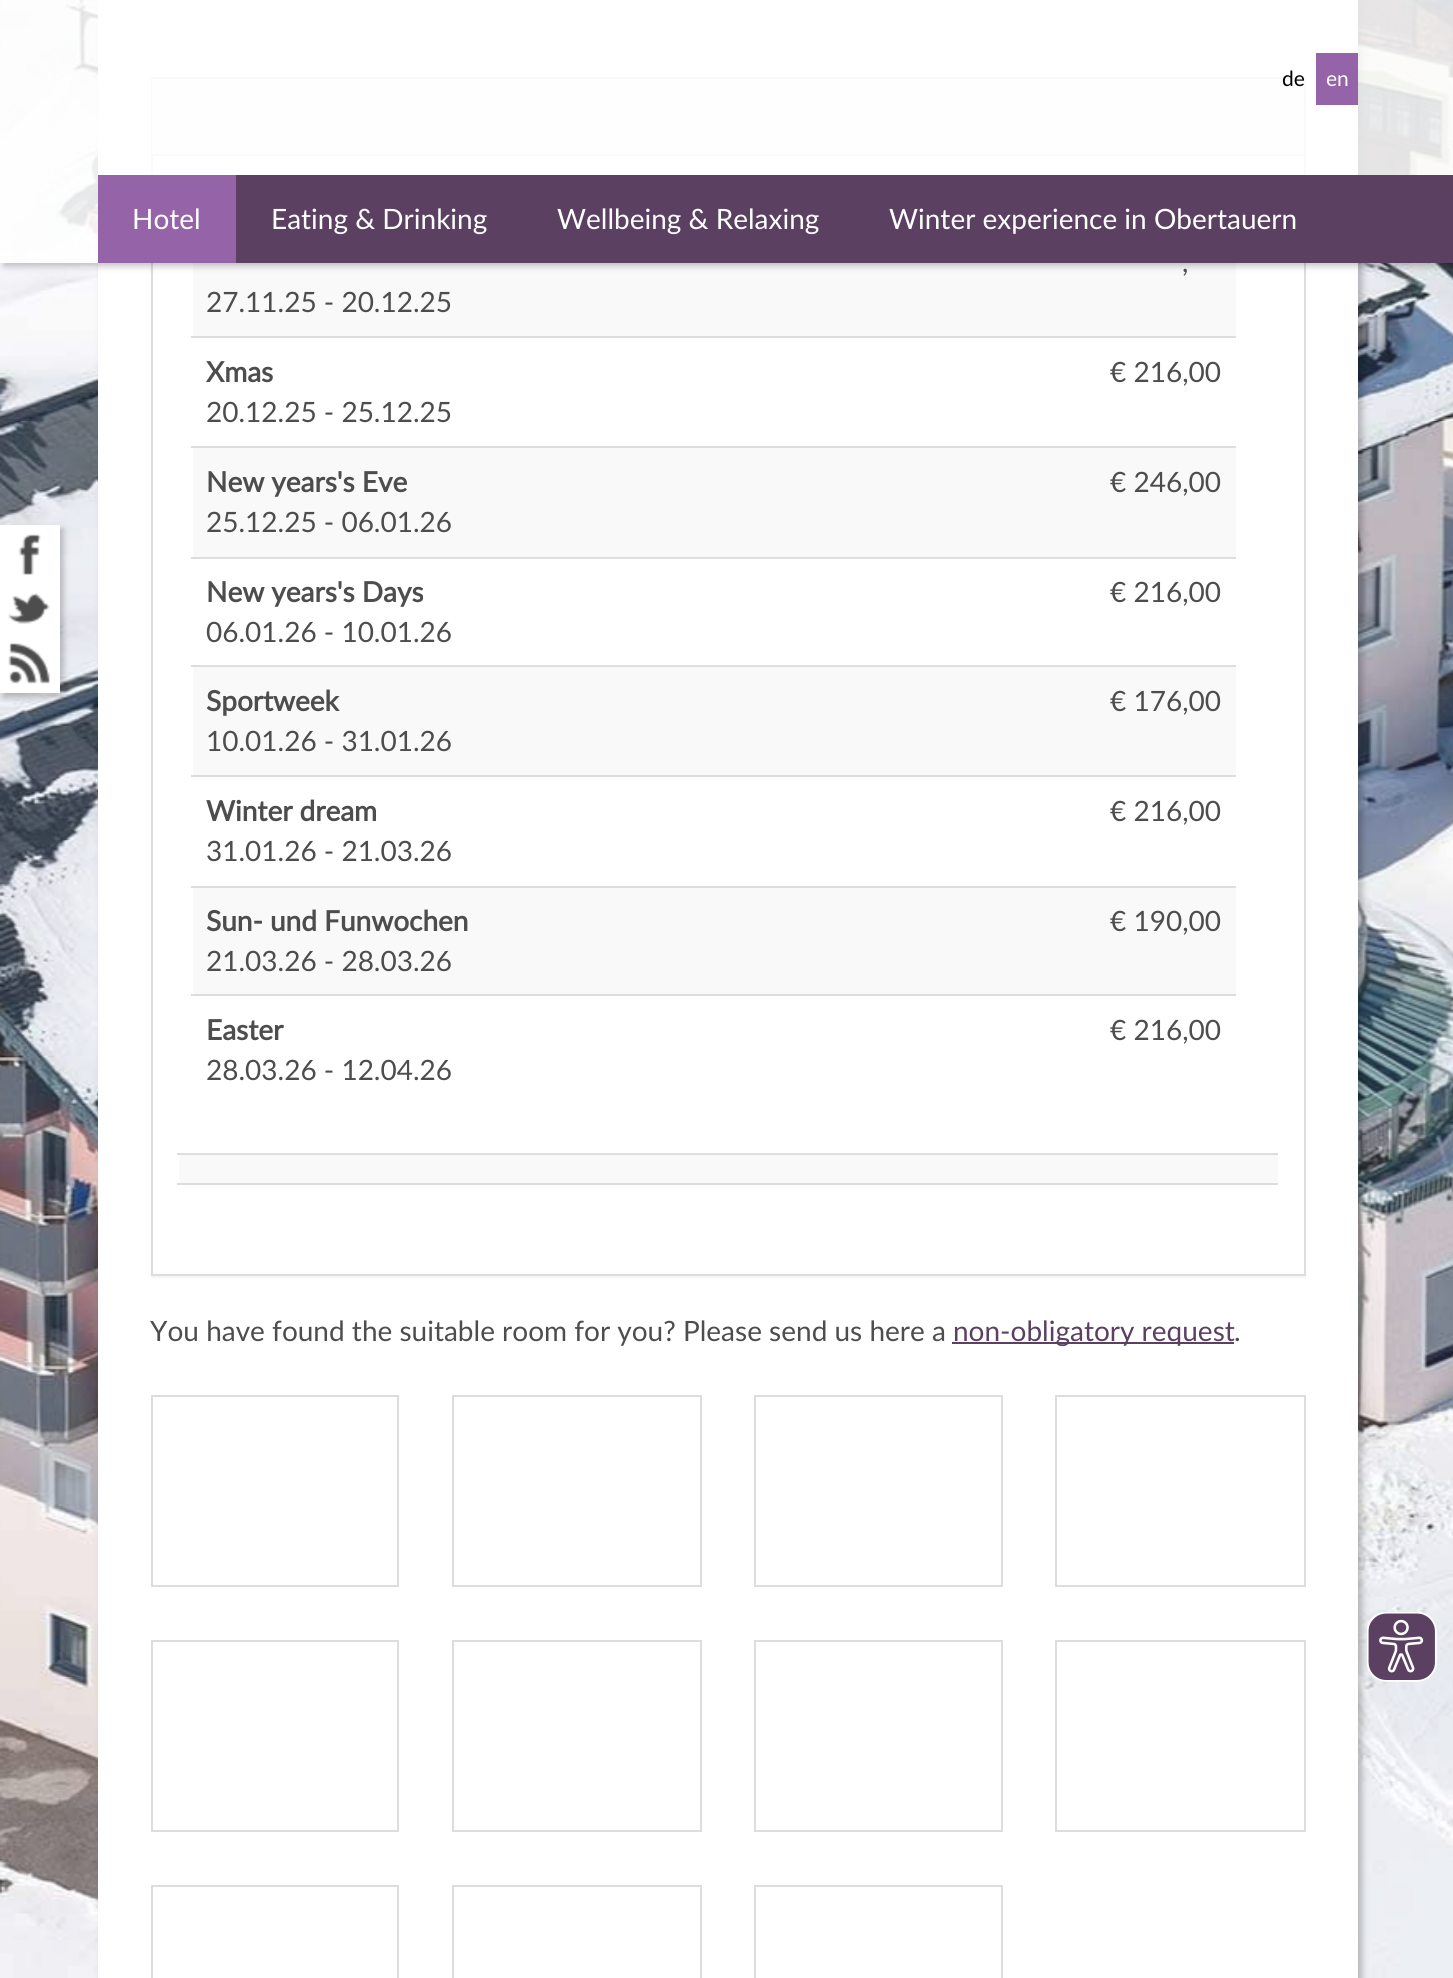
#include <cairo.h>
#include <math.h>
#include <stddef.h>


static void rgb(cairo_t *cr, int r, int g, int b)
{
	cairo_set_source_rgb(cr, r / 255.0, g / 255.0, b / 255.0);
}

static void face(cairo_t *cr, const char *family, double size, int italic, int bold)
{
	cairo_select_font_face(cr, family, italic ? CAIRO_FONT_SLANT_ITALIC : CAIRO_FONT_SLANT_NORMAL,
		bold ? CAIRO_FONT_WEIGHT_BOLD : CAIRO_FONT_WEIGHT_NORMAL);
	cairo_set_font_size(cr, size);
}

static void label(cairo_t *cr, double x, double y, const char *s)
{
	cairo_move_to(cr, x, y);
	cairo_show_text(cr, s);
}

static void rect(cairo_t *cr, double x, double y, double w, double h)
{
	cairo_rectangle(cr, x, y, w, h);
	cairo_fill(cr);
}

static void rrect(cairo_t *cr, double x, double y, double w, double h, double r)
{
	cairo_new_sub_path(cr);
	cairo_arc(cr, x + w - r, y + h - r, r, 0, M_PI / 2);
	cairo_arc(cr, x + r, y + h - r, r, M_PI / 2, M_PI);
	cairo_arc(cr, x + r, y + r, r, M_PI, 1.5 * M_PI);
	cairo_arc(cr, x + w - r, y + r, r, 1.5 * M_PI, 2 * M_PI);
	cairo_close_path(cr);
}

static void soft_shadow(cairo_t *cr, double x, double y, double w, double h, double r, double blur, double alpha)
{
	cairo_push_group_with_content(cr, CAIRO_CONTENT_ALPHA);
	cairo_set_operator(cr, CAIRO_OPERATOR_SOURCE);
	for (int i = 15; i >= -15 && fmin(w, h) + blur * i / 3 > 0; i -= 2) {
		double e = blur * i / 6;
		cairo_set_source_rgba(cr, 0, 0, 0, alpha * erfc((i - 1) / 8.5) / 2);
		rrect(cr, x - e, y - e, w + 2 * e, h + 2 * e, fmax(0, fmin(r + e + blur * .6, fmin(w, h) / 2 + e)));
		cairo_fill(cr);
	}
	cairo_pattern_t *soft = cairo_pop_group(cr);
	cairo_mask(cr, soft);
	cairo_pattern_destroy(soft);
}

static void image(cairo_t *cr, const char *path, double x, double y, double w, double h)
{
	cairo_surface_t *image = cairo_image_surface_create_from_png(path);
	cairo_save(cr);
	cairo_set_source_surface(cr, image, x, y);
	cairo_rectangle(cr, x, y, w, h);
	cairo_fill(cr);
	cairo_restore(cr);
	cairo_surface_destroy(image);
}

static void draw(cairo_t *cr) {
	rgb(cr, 255, 255, 255);
	cairo_paint(cr);
	image(cr, "image0.png", 0, 0, 1453, 1978);
	rgb(cr, 0, 0, 0);
	soft_shadow(cr, 102, -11, 1260, 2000, 0, 3.5, 0.25);
	rgb(cr, 255, 255, 255);
	rect(cr, 98, 0, 1260, 1978);
	rgb(cr, 0, 0, 0);
	soft_shadow(cr, 151, 79, 1155, 1199, 0, 1, 0.05);
	rgb(cr, 255, 255, 255);
	rect(cr, 153, 156, 1151, 1118);
	cairo_rectangle(cr, 152, 78, 1153, 1197);
	rgb(cr, 221, 221, 221);
	cairo_stroke(cr);
	rgb(cr, 245, 245, 245);
	rect(cr, 152, 79, 1152, 75);
	rgb(cr, 221, 221, 221);
	rect(cr, 152, 154, 1152, 2);
	rgb(cr, 249, 249, 249);
	rect(cr, 193, 263, 1043, 73);
	cairo_save(cr);
	cairo_set_fill_rule(cr, CAIRO_FILL_RULE_EVEN_ODD);
	cairo_new_path(cr);
	cairo_move_to(cr, 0, 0);
	cairo_line_to(cr, 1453, 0);
	cairo_line_to(cr, 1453, 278);
	cairo_line_to(cr, 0, 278);
	cairo_close_path(cr);
	cairo_move_to(cr, 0, 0);
	cairo_line_to(cr, 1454, 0);
	cairo_line_to(cr, 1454, 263);
	cairo_line_to(cr, 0, 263);
	cairo_close_path(cr);
	cairo_clip(cr);
	rgb(cr, 0, 0, 0);
	soft_shadow(cr, 4, 4, 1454, 262, 0, 3.5, 0.25);
	cairo_restore(cr);
	cairo_set_source_rgba(cr, 1, 1, 1, 0.85);
	rect(cr, 0, 0, 1453, 263);
	face(cr, "Lato", 21, 0, 0);
	rgb(cr, 0, 0, 0);
	label(cr, 1282, 86, "de");
	rgb(cr, 149, 99, 167);
	rect(cr, 1316, 53, 42, 52);
	rgb(cr, 255, 255, 255);
	label(cr, 1326, 86, "en");
	rgb(cr, 91, 64, 98);
	rect(cr, 236, 175, 1217, 88);
	rgb(cr, 149, 99, 167);
	rect(cr, 98, 175, 138, 88);
	face(cr, "Lato", 28, 0, 0);
	rgb(cr, 255, 255, 255);
	label(cr, 132, 229, "Hotel");
	label(cr, 271, 229, "Eating & Drinking");
	label(cr, 557, 229, "Wellbeing & Relaxing");
	label(cr, 889, 229, "Winter experience in Obertauern");
	rgb(cr, 0, 0, 0);
	soft_shadow(cr, 4, 529, 59, 168, 0, 3.5, 0.25);
	rgb(cr, 255, 255, 255);
	rect(cr, 0, 525, 60, 168);
	image(cr, "image1.png", 18, 534, 23, 41);
	image(cr, "image2.png", 8, 593, 42, 31);
	image(cr, "image3.png", 8, 643, 42, 41);
	rgb(cr, 77, 77, 77);
	label(cr, 1182, 272, ",");
	label(cr, 206, 312, "27.11.25 - 20.12.25");
	face(cr, "Lato", 28, 0, 1);
	label(cr, 206, 382, "Xmas");
	face(cr, "Lato", 28, 0, 0);
	label(cr, 206, 422, "20.12.25 - 25.12.25");
	rgb(cr, 221, 221, 221);
	rect(cr, 191, 336, 1045, 2);
	rgb(cr, 77, 77, 77);
	label(cr, 1110, 382, "€ 216,00");
	rgb(cr, 249, 249, 249);
	rect(cr, 193, 448, 1043, 109);
	face(cr, "Lato", 28, 0, 1);
	rgb(cr, 77, 77, 77);
	label(cr, 206, 492, "New years's Eve");
	face(cr, "Lato", 28, 0, 0);
	label(cr, 206, 532, "25.12.25 - 06.01.26");
	rgb(cr, 221, 221, 221);
	rect(cr, 191, 446, 1045, 2);
	rgb(cr, 77, 77, 77);
	label(cr, 1110, 492, "€ 246,00");
	face(cr, "Lato", 28, 0, 1);
	label(cr, 206, 602, "New years's Days");
	face(cr, "Lato", 28, 0, 0);
	label(cr, 206, 642, "06.01.26 - 10.01.26");
	rgb(cr, 221, 221, 221);
	rect(cr, 191, 557, 1045, 2);
	rgb(cr, 77, 77, 77);
	label(cr, 1110, 602, "€ 216,00");
	rgb(cr, 249, 249, 249);
	rect(cr, 193, 667, 1043, 108);
	face(cr, "Lato", 28, 0, 1);
	rgb(cr, 77, 77, 77);
	label(cr, 206, 711, "Sportweek");
	face(cr, "Lato", 28, 0, 0);
	label(cr, 206, 751, "10.01.26 - 31.01.26");
	rgb(cr, 221, 221, 221);
	rect(cr, 191, 665, 1045, 2);
	rgb(cr, 77, 77, 77);
	label(cr, 1110, 711, "€ 176,00");
	face(cr, "Lato", 28, 0, 1);
	label(cr, 206, 821, "Winter dream");
	face(cr, "Lato", 28, 0, 0);
	label(cr, 206, 861, "31.01.26 - 21.03.26");
	rgb(cr, 221, 221, 221);
	rect(cr, 191, 775, 1045, 2);
	rgb(cr, 77, 77, 77);
	label(cr, 1110, 821, "€ 216,00");
	rgb(cr, 249, 249, 249);
	rect(cr, 193, 888, 1043, 106);
	face(cr, "Lato", 28, 0, 1);
	rgb(cr, 77, 77, 77);
	label(cr, 206, 931, "Sun- und Funwochen");
	face(cr, "Lato", 28, 0, 0);
	label(cr, 206, 971, "21.03.26 - 28.03.26");
	rgb(cr, 221, 221, 221);
	rect(cr, 191, 886, 1045, 2);
	rgb(cr, 77, 77, 77);
	label(cr, 1110, 931, "€ 190,00");
	face(cr, "Lato", 28, 0, 1);
	label(cr, 206, 1040, "Easter");
	face(cr, "Lato", 28, 0, 0);
	label(cr, 206, 1080, "28.03.26 - 12.04.26");
	rgb(cr, 221, 221, 221);
	rect(cr, 191, 994, 1045, 2);
	rgb(cr, 77, 77, 77);
	label(cr, 1110, 1040, "€ 216,00");
	rgb(cr, 221, 221, 221);
	rect(cr, 177, 1153, 1101, 2);
	rgb(cr, 249, 249, 249);
	rect(cr, 179, 1155, 1099, 28);
	rgb(cr, 221, 221, 221);
	rect(cr, 177, 1183, 1101, 2);
	rgb(cr, 77, 77, 77);
	label(cr, 150, 1341, "You have found the suitable room for you? Please send us here a");
	rgb(cr, 91, 64, 98);
	rect(cr, 952, 1342, 282, 2);
	label(cr, 953, 1341, "non-obligatory request");
	rgb(cr, 77, 77, 77);
	label(cr, 1234, 1341, ".");
	cairo_rectangle(cr, 152, 1396, 246, 190);
	rgb(cr, 221, 221, 221);
	cairo_stroke(cr);
	cairo_rectangle(cr, 453, 1396, 248, 190);
	cairo_stroke(cr);
	cairo_rectangle(cr, 755, 1396, 247, 190);
	cairo_stroke(cr);
	cairo_rectangle(cr, 1056, 1396, 249, 190);
	cairo_stroke(cr);
	cairo_rectangle(cr, 152, 1641, 246, 190);
	cairo_stroke(cr);
	cairo_rectangle(cr, 453, 1641, 248, 190);
	cairo_stroke(cr);
	cairo_rectangle(cr, 755, 1641, 247, 190);
	cairo_stroke(cr);
	cairo_rectangle(cr, 1056, 1641, 249, 190);
	cairo_stroke(cr);
	cairo_rectangle(cr, 152, 1886, 246, 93);
	cairo_stroke(cr);
	cairo_rectangle(cr, 453, 1886, 248, 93);
	cairo_stroke(cr);
	cairo_rectangle(cr, 755, 1886, 247, 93);
	cairo_stroke(cr);
	image(cr, "image4.png", 1367, 1612, 70, 70);
}

int main(void) {
	cairo_surface_t *surface = cairo_image_surface_create(CAIRO_FORMAT_RGB24, 1453, 1978);
	cairo_t *cr = cairo_create(surface);
	cairo_font_options_t *options = cairo_font_options_create();
	cairo_font_options_set_hint_metrics(options, CAIRO_HINT_METRICS_OFF);
	cairo_font_options_set_hint_style(options, CAIRO_HINT_STYLE_NONE);
	cairo_set_font_options(cr, options);
	cairo_set_miter_limit(cr, 4);
	draw(cr);
	cairo_surface_write_to_png(surface, "render.png");
	cairo_font_options_destroy(options);
	cairo_destroy(cr);
	cairo_surface_destroy(surface);
	return 0;
}
